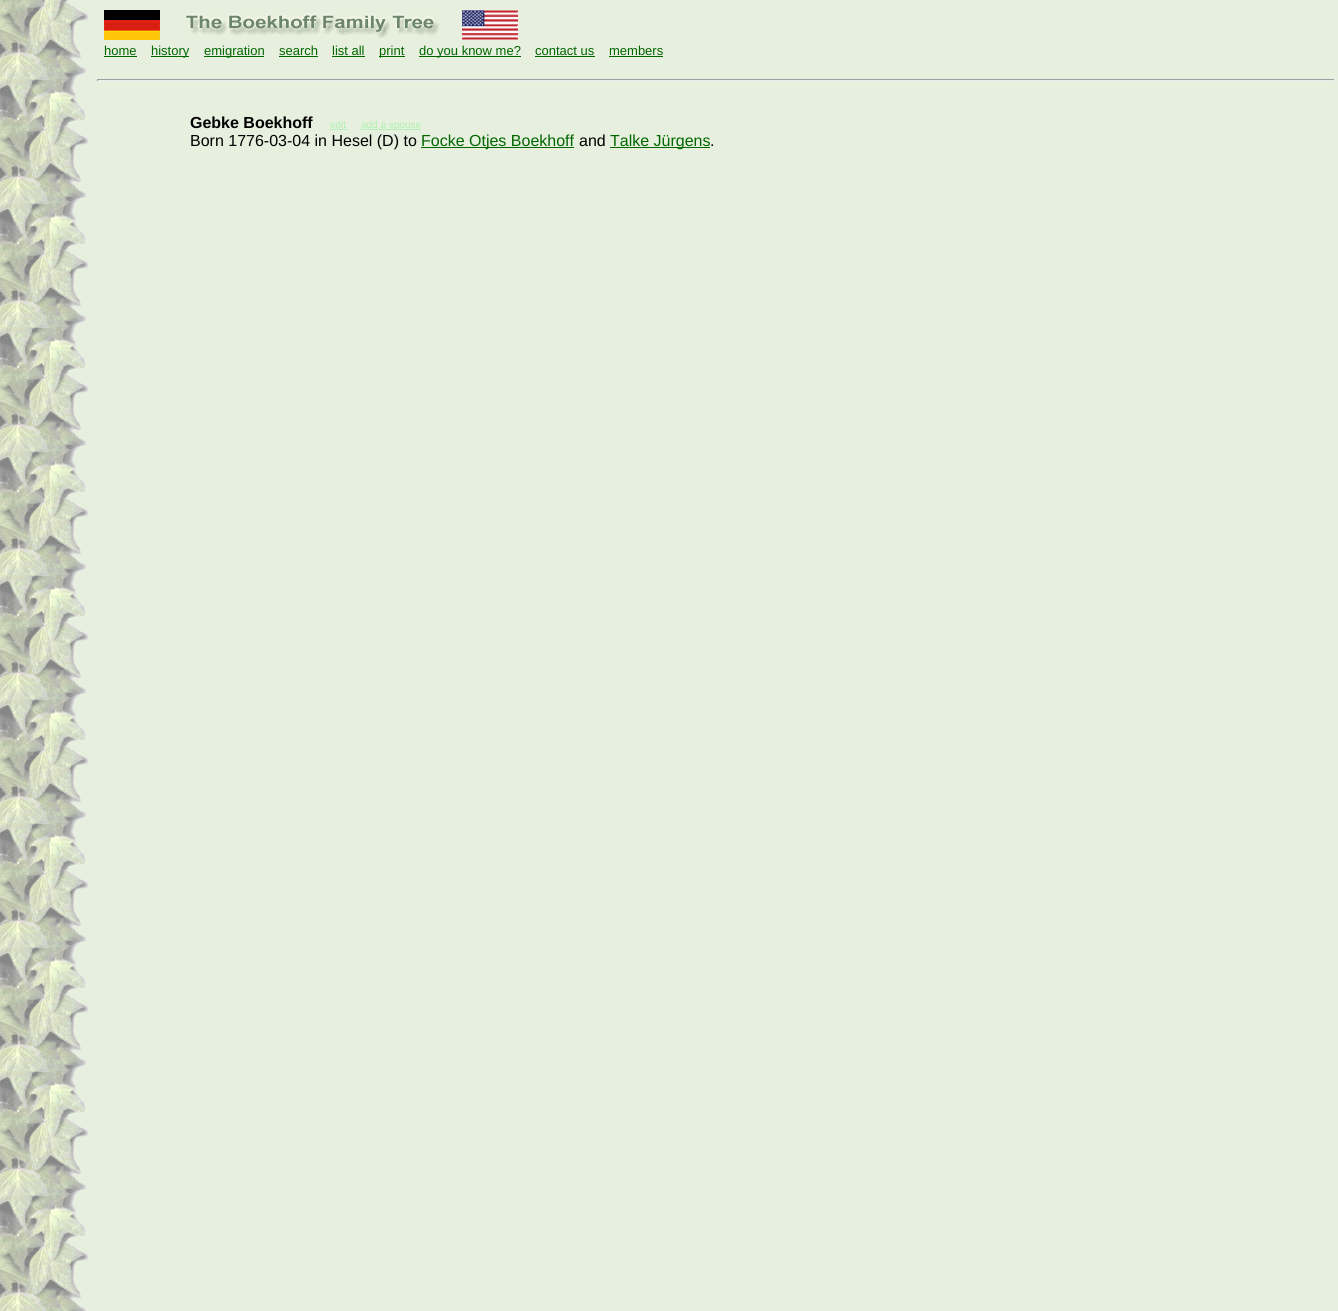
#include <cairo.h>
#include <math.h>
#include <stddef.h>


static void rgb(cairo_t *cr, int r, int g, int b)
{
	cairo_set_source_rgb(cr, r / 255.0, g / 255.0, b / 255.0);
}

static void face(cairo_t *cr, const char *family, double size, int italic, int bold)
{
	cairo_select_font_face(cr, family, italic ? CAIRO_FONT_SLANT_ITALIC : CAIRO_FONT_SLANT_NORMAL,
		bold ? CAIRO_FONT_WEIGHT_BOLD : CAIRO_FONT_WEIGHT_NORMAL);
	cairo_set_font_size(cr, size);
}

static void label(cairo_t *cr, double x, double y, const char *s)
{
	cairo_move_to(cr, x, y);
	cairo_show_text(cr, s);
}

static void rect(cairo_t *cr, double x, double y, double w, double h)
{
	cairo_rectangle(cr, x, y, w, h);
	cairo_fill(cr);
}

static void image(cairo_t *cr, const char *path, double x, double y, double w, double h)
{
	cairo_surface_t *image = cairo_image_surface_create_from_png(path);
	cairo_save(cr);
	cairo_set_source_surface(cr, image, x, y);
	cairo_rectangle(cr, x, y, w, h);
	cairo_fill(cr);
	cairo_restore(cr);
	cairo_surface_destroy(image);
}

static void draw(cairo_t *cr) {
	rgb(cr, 231, 239, 222);
	cairo_paint(cr);
	image(cr, "image0.png", 0, 0, 89, 1311);
	image(cr, "image1.png", 104, 10, 56, 30);
	image(cr, "image2.png", 185, 13, 254, 25);
	image(cr, "image3.png", 462, 10, 56, 30);
	face(cr, "Liberation Sans", 13, 0, 0);
	rgb(cr, 0, 102, 0);
	label(cr, 104, 55, "home");
	rect(cr, 104, 56, 33, 1);
	rect(cr, 151, 56, 38, 1);
	label(cr, 151, 55, "history");
	rect(cr, 204, 56, 60, 1);
	label(cr, 204, 55, "emigration");
	label(cr, 279, 55, "search");
	rect(cr, 279, 56, 39, 1);
	label(cr, 332, 55, "list all");
	rect(cr, 332, 56, 33, 1);
	rect(cr, 379, 56, 26, 1);
	label(cr, 379, 55, "print");
	rect(cr, 419, 56, 102, 1);
	label(cr, 419, 55, "do you know me?");
	label(cr, 535, 55, "contact us");
	rect(cr, 535, 56, 60, 1);
	label(cr, 609, 55, "members");
	rect(cr, 609, 56, 54, 1);
	rgb(cr, 159, 159, 159);
	rect(cr, 97, 79, 1238, 1);
	rgb(cr, 238, 238, 238);
	rect(cr, 1334, 79, 1, 2);
	rect(cr, 97, 80, 1238, 1);
	rgb(cr, 159, 159, 159);
	rect(cr, 97, 79, 1, 2);
	face(cr, "Liberation Sans", 16, 0, 1);
	rgb(cr, 0, 0, 0);
	label(cr, 190, 128, "Gebke Boekhoff");
	face(cr, "Liberation Sans", 10, 0, 0);
	rgb(cr, 175, 241, 175);
	label(cr, 330, 128, "edit");
	rect(cr, 330, 129, 17, 1);
	rect(cr, 361, 129, 60, 1);
	label(cr, 361, 128, "add a spouse");
	face(cr, "Liberation Sans", 16, 0, 0);
	rgb(cr, 0, 0, 0);
	label(cr, 190, 146, "Born 1776-03-04 in Hesel (D) to");
	rgb(cr, 0, 102, 0);
	rect(cr, 421, 147, 153, 1);
	label(cr, 421, 146, "Focke Otjes Boekhoff");
	rgb(cr, 0, 0, 0);
	label(cr, 579, 146, "and");
	rgb(cr, 0, 102, 0);
	rect(cr, 610, 147, 100, 1);
	label(cr, 610, 146, "Talke Jürgens");
	rgb(cr, 0, 0, 0);
	label(cr, 710, 146, ".");
}

int main(void) {
	cairo_surface_t *surface = cairo_image_surface_create(CAIRO_FORMAT_RGB24, 1338, 1311);
	cairo_t *cr = cairo_create(surface);
	cairo_font_options_t *options = cairo_font_options_create();
	cairo_font_options_set_hint_metrics(options, CAIRO_HINT_METRICS_OFF);
	cairo_font_options_set_hint_style(options, CAIRO_HINT_STYLE_NONE);
	cairo_set_font_options(cr, options);
	cairo_set_miter_limit(cr, 4);
	draw(cr);
	cairo_surface_write_to_png(surface, "render.png");
	cairo_font_options_destroy(options);
	cairo_destroy(cr);
	cairo_surface_destroy(surface);
	return 0;
}
